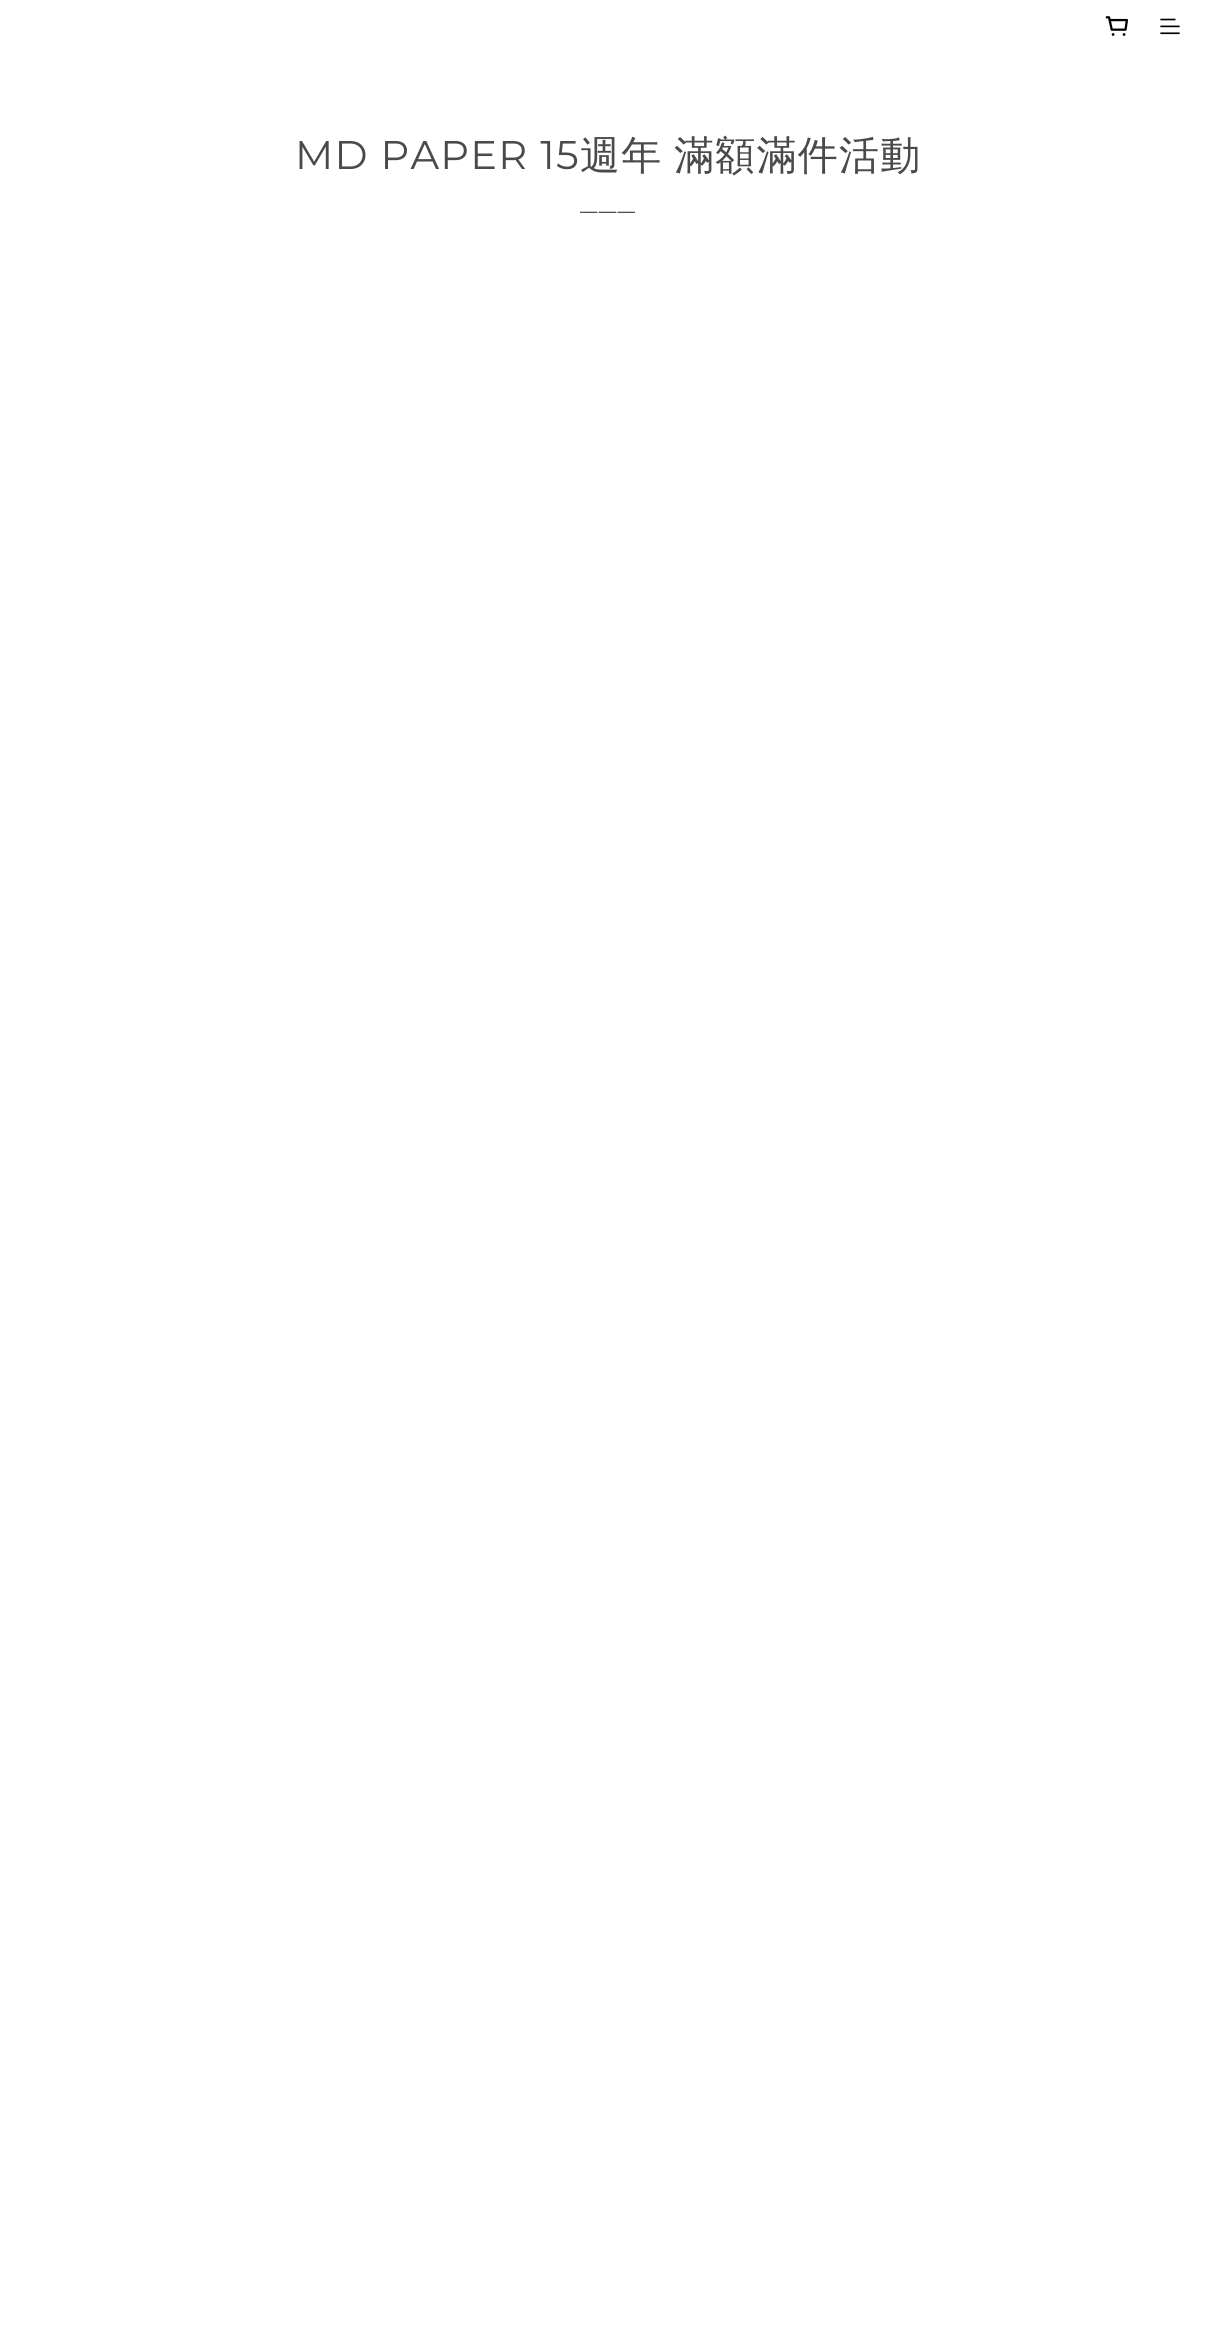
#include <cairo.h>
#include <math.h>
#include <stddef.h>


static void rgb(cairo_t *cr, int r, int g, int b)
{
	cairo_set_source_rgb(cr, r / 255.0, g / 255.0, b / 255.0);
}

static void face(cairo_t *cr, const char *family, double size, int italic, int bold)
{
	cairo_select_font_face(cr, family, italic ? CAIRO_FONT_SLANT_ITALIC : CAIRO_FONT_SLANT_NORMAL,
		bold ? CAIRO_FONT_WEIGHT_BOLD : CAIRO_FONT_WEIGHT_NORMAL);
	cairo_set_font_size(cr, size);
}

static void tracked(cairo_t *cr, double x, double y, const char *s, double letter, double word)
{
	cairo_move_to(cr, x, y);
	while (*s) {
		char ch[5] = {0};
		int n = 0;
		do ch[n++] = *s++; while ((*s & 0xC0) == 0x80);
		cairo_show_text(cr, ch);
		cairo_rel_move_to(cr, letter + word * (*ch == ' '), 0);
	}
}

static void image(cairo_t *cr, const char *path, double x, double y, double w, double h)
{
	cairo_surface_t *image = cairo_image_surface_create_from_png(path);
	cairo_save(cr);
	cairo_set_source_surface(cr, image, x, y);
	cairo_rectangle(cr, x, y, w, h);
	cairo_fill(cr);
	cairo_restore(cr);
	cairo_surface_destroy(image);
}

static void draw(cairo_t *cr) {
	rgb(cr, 255, 255, 255);
	cairo_paint(cr);
	image(cr, "image0.png", 1105, 16, 23, 20);
	image(cr, "image1.png", 1160, 18, 20, 17);
	face(cr, "Montserrat", 40, 0, 0);
	rgb(cr, 74, 74, 74);
	tracked(cr, 295, 169, "MD PAPER 15", 1.25, 0);
	face(cr, "WenQuanYi Zen Hei Medium", 40, 0, 0);
	tracked(cr, 580, 169, "週年", 1.25, 0);
	tracked(cr, 674, 169, "滿額滿件活動", 1.25, 0);
	face(cr, "Montserrat", 17.5, 0, 0);
	rgb(cr, 0, 0, 0);
	tracked(cr, 580, 217, "———", 1.25, 0);
}

int main(void) {
	cairo_surface_t *surface = cairo_image_surface_create(CAIRO_FORMAT_RGB24, 1216, 2339);
	cairo_t *cr = cairo_create(surface);
	cairo_font_options_t *options = cairo_font_options_create();
	cairo_font_options_set_hint_metrics(options, CAIRO_HINT_METRICS_OFF);
	cairo_font_options_set_hint_style(options, CAIRO_HINT_STYLE_NONE);
	cairo_set_font_options(cr, options);
	cairo_set_miter_limit(cr, 4);
	draw(cr);
	cairo_surface_write_to_png(surface, "render.png");
	cairo_font_options_destroy(options);
	cairo_destroy(cr);
	cairo_surface_destroy(surface);
	return 0;
}
